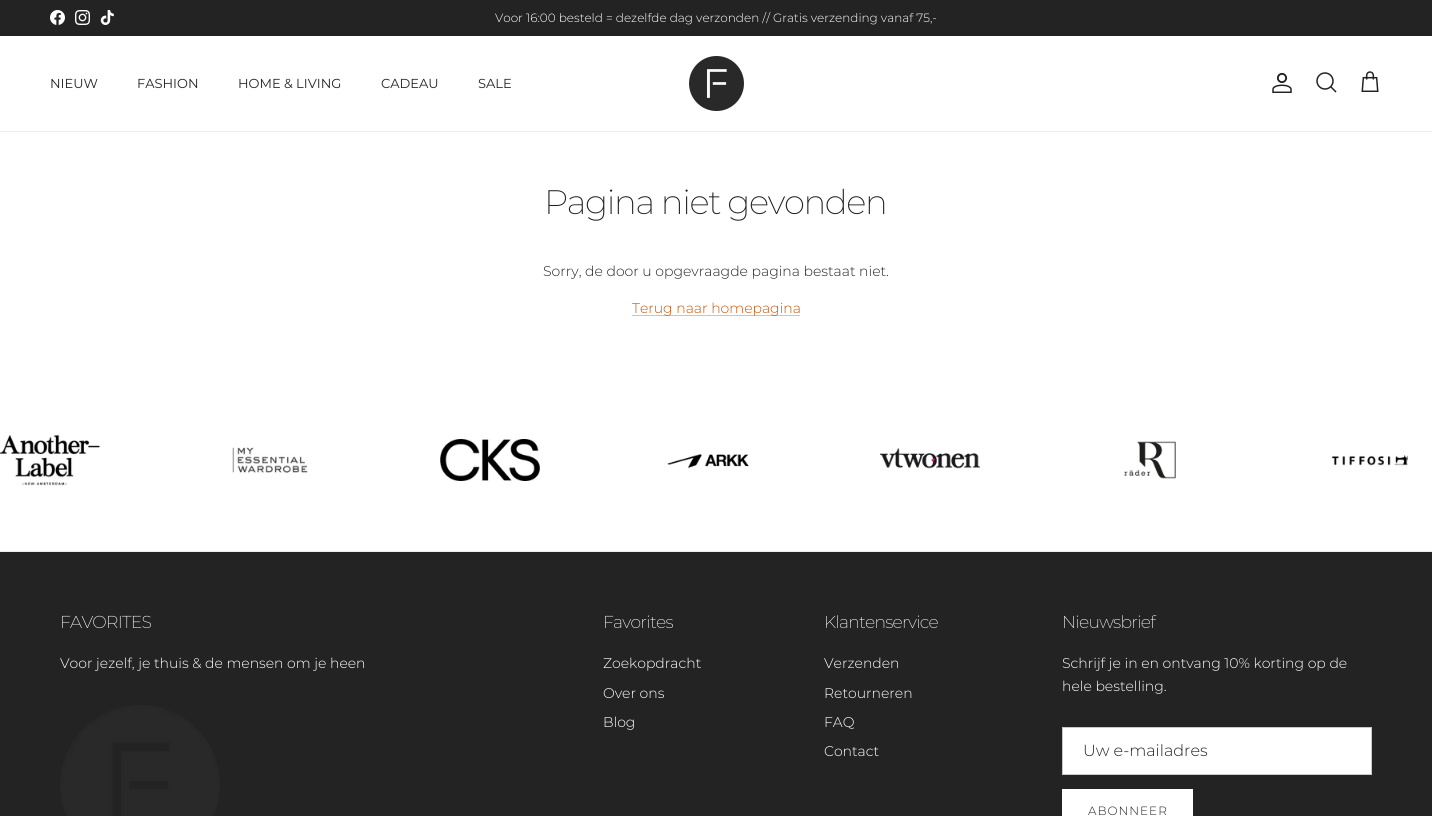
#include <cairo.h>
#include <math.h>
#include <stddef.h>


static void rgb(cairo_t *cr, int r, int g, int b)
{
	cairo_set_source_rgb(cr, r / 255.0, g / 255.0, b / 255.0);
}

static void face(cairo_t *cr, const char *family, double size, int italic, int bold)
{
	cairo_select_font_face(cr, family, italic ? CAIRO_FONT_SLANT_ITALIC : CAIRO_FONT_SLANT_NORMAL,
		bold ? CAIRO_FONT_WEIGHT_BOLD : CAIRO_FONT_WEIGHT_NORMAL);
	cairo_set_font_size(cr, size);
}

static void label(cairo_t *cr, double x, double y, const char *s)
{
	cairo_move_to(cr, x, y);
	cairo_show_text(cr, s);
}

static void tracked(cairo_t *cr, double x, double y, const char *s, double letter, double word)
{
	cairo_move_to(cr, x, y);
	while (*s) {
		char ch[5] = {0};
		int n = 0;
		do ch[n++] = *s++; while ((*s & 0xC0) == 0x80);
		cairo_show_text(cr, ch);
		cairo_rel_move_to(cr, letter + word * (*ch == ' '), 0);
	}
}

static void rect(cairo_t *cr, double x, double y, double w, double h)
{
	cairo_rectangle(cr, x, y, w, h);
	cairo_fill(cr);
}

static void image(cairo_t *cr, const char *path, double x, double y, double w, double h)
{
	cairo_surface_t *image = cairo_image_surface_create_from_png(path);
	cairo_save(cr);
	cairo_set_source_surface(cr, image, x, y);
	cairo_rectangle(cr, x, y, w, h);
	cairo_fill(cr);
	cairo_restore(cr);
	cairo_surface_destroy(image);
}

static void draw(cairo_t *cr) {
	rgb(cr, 255, 255, 255);
	cairo_paint(cr);
	rgb(cr, 35, 35, 35);
	rect(cr, 0, 0, 1432, 36);
	image(cr, "image0.png", 50, 10, 15, 15);
	image(cr, "image1.png", 75, 10, 15, 15);
	image(cr, "image2.png", 100, 10, 14, 15);
	face(cr, "Montserrat Light", 12, 0, 0);
	rgb(cr, 255, 255, 255);
	label(cr, 495, 22, "Voor 16:00 besteld = dezelfde dag verzonden // Gratis verzending vanaf 75,-");
	rgb(cr, 236, 236, 236);
	rect(cr, 0, 131, 1432, 1);
	face(cr, "Montserrat", 13, 0, 0);
	rgb(cr, 35, 35, 35);
	label(cr, 50, 88, "NIEUW");
	label(cr, 137, 88, "FASHION");
	label(cr, 238, 88, "HOME & LIVING");
	label(cr, 381, 88, "CADEAU");
	label(cr, 478, 88, "SALE");
	image(cr, "image3.png", 689, 56, 55, 55);
	image(cr, "image4.png", 1272, 73, 20, 20);
	cairo_arc(cr, 1325, 81, 8, 0, 2 * M_PI);
	cairo_set_line_width(cr, 1.5);
	cairo_stroke(cr);
	cairo_new_path(cr);
	cairo_move_to(cr, 1331, 87);
	cairo_line_to(cr, 1335.5, 91.5);
	cairo_set_line_cap(cr, CAIRO_LINE_CAP_SQUARE);
	cairo_stroke(cr);
	image(cr, "image5.png", 1361, 71, 18, 21);
	face(cr, "Montserrat ExtraLight", 34, 0, 0);
	tracked(cr, 544, 214, "Pagina niet gevonden", -1.4, 0);
	face(cr, "Montserrat Light", 14, 0, 0);
	label(cr, 543, 276, "Sorry, de door u opgevraagde pagina bestaat niet.");
	rgb(cr, 229, 188, 157);
	rect(cr, 632, 315, 168, 1);
	rgb(cr, 191, 87, 10);
	label(cr, 632, 313, "Terug naar homepagina");
	image(cr, "image6.png", 0, 434, 100, 52);
	image(cr, "image7.png", 232, 447, 76, 27);
	image(cr, "image8.png", 440, 439, 100, 42);
	image(cr, "image9.png", 667, 454, 82, 15);
	image(cr, "image10.png", 880, 448, 100, 21);
	image(cr, "image11.png", 1124, 441, 52, 38);
	image(cr, "image12.png", 1332, 455, 76, 12);
	rgb(cr, 35, 35, 35);
	rect(cr, 0, 552, 1432, 264);
	rgb(cr, 236, 236, 236);
	rect(cr, 0, 551, 1432, 1);
	face(cr, "Montserrat ExtraLight", 17.25, 0, 0);
	rgb(cr, 255, 255, 255);
	tracked(cr, 60, 628, "FAVORITES", -0.75, 0);
	face(cr, "Montserrat Light", 14, 0, 0);
	label(cr, 60, 668, "Voor jezelf, je thuis & de mensen om je heen");
	image(cr, "image13.png", 60, 705, 160, 111);
	face(cr, "Montserrat ExtraLight", 17.25, 0, 0);
	tracked(cr, 603, 628, "Favorites", -0.75, 0);
	face(cr, "Montserrat Light", 14, 0, 0);
	label(cr, 603, 668, "Zoekopdracht");
	label(cr, 603, 698, "Over ons");
	label(cr, 603, 727, "Blog");
	face(cr, "Montserrat ExtraLight", 17.25, 0, 0);
	tracked(cr, 824, 628, "Klantenservice", -0.75, 0);
	face(cr, "Montserrat Light", 14, 0, 0);
	label(cr, 824, 668, "Verzenden");
	label(cr, 824, 698, "Retourneren");
	label(cr, 824, 727, "FAQ");
	label(cr, 824, 756, "Contact");
	face(cr, "Montserrat ExtraLight", 17.25, 0, 0);
	tracked(cr, 1062, 628, "Nieuwsbrief", -0.75, 0);
	face(cr, "Montserrat Light", 14, 0, 0);
	label(cr, 1062, 668, "Schrijf je in en ontvang 10% korting op de");
	label(cr, 1062, 691, "hele bestelling.");
	cairo_rectangle(cr, 1062.5, 727.5, 309, 47);
	cairo_fill_preserve(cr);
	rgb(cr, 200, 200, 200);
	cairo_set_line_width(cr, 1);
	cairo_set_line_cap(cr, CAIRO_LINE_CAP_BUTT);
	cairo_stroke(cr);
	face(cr, "Montserrat Light", 16, 0, 0);
	rgb(cr, 35, 35, 35);
	label(cr, 1083, 756, "Uw e-mailadres");
	rgb(cr, 255, 255, 255);
	rect(cr, 1062, 789, 131, 27);
	face(cr, "Montserrat Light", 12, 0, 0);
	rgb(cr, 35, 35, 35);
	tracked(cr, 1088, 815, "ABONNEER", 1, 0);
}

int main(void) {
	cairo_surface_t *surface = cairo_image_surface_create(CAIRO_FORMAT_RGB24, 1432, 816);
	cairo_t *cr = cairo_create(surface);
	cairo_font_options_t *options = cairo_font_options_create();
	cairo_font_options_set_hint_metrics(options, CAIRO_HINT_METRICS_OFF);
	cairo_font_options_set_hint_style(options, CAIRO_HINT_STYLE_NONE);
	cairo_set_font_options(cr, options);
	cairo_set_miter_limit(cr, 4);
	draw(cr);
	cairo_surface_write_to_png(surface, "render.png");
	cairo_font_options_destroy(options);
	cairo_destroy(cr);
	cairo_surface_destroy(surface);
	return 0;
}
